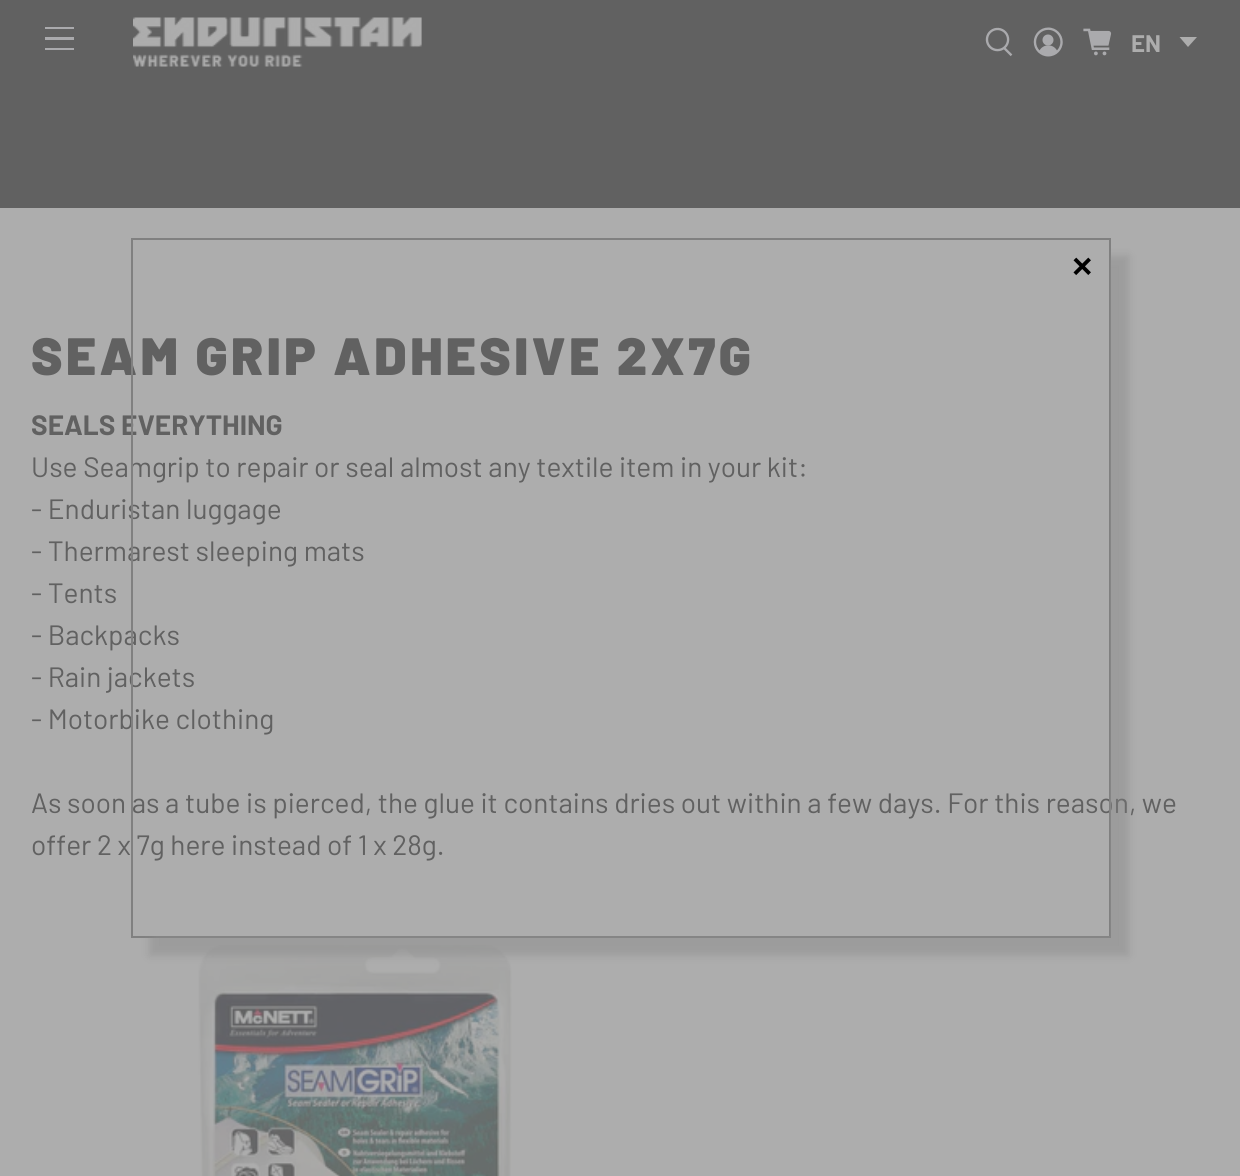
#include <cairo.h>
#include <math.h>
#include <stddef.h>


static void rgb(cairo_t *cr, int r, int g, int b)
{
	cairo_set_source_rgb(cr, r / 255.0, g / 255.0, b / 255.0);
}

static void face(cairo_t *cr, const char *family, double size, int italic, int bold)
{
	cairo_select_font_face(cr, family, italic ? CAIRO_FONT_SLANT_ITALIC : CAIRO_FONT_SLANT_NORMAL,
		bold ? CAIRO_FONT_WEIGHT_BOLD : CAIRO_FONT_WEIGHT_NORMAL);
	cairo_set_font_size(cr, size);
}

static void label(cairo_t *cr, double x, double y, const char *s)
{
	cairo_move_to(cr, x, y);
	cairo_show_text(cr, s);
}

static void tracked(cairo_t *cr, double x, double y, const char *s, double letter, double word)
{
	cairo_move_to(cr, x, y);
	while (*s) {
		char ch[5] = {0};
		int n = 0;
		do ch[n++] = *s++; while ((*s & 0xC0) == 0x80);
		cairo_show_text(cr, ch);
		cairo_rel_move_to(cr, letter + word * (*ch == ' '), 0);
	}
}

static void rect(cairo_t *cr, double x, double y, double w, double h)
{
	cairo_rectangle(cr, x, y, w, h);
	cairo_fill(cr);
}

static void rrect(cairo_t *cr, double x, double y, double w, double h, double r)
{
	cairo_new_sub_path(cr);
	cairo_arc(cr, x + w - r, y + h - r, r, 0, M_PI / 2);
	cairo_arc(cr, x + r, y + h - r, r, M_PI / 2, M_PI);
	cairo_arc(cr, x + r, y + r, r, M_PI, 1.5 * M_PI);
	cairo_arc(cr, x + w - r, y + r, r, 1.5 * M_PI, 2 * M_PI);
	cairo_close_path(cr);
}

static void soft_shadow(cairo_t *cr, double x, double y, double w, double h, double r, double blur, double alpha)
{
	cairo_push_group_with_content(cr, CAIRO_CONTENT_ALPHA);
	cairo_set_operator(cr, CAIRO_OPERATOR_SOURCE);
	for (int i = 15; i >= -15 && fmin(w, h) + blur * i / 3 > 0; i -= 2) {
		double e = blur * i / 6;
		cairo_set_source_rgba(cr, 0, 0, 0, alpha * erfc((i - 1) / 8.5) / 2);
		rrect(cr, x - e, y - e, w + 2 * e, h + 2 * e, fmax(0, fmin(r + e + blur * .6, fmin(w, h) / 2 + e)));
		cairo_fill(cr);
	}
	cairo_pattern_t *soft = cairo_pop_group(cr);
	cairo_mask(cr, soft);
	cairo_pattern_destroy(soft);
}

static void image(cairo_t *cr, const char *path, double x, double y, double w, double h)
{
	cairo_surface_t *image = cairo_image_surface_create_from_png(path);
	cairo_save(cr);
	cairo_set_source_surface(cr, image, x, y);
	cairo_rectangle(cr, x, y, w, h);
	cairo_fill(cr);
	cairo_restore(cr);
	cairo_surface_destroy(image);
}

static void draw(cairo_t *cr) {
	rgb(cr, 173, 173, 173);
	cairo_paint(cr);
	rgb(cr, 97, 97, 97);
	rect(cr, 0, 0, 1240, 208);
	rgb(cr, 170, 170, 173);
	rect(cr, 45, 27, 29, 2);
	rect(cr, 45, 37, 29, 3);
	rect(cr, 45, 48, 29, 2);
	image(cr, "image0.png", 133, 17, 289, 50);
	image(cr, "image1.png", 985, 27, 28, 30);
	image(cr, "image2.png", 1033, 27, 30, 30);
	image(cr, "image3.png", 1083, 28, 29, 28);
	face(cr, "Barlow", 24, 0, 1);
	rgb(cr, 173, 173, 173);
	label(cr, 1131, 52, "EN");
	cairo_new_path(cr);
	cairo_move_to(cr, 1179.5, 37);
	cairo_line_to(cr, 1197, 37);
	cairo_line_to(cr, 1188, 47);
	cairo_close_path(cr);
	cairo_fill(cr);
	image(cr, "image4.png", 198, 944, 314, 232);
	cairo_save(cr);
	cairo_set_fill_rule(cr, CAIRO_FILL_RULE_EVEN_ODD);
	cairo_new_path(cr);
	cairo_move_to(cr, 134, 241);
	cairo_line_to(cr, 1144, 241);
	cairo_line_to(cr, 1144, 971);
	cairo_line_to(cr, 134, 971);
	cairo_close_path(cr);
	cairo_move_to(cr, 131, 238);
	cairo_line_to(cr, 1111, 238);
	cairo_line_to(cr, 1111, 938);
	cairo_line_to(cr, 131, 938);
	cairo_close_path(cr);
	cairo_clip(cr);
	rgb(cr, 143, 143, 143);
	soft_shadow(cr, 149, 256, 980, 700, 0, 4.5, 0.35);
	cairo_restore(cr);
	face(cr, "Barlow Black", 52.5, 0, 0);
	rgb(cr, 97, 97, 97);
	tracked(cr, 31, 375, "SEAM GRIP ADHESIVE 2X7G", 3.5, 0);
	face(cr, "Barlow", 28, 0, 1);
	label(cr, 31, 435, "SEALS EVERYTHING");
	face(cr, "Barlow", 28, 0, 0);
	label(cr, 31, 477, "Use Seamgrip to repair or seal almost any textile item in your kit:");
	label(cr, 31, 519, "- Enduristan luggage");
	label(cr, 31, 561, "- Thermarest sleeping mats");
	label(cr, 31, 645, "- Backpacks");
	label(cr, 31, 687, "- Rain jackets");
	label(cr, 31, 729, "- Motorbike clothing");
	label(cr, 31, 813, "As soon as a tube is pierced, the glue it contains dries out within a few days. For this reason, we");
	label(cr, 31, 855, "offer 2 x 7g here instead of 1 x 28g.");
	cairo_rectangle(cr, 132, 239, 978, 698);
	rgb(cr, 128, 128, 128);
	cairo_stroke(cr);
	cairo_save(cr);
	cairo_set_fill_rule(cr, CAIRO_FILL_RULE_EVEN_ODD);
	cairo_new_path(cr);
	cairo_move_to(cr, 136, 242);
	cairo_line_to(cr, 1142, 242);
	cairo_line_to(cr, 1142, 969);
	cairo_line_to(cr, 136, 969);
	cairo_close_path(cr);
	cairo_move_to(cr, 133, 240);
	cairo_line_to(cr, 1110, 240);
	cairo_line_to(cr, 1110, 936);
	cairo_line_to(cr, 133, 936);
	cairo_close_path(cr);
	cairo_clip(cr);
	rgb(cr, 143, 143, 143);
	soft_shadow(cr, 151, 257, 976, 697, 0, 4.5, 0.35);
	cairo_restore(cr);
	face(cr, "Liberation Sans", 35, 0, 1);
	rgb(cr, 0, 0, 0);
	label(cr, 1072, 278, "×");
	face(cr, "Barlow", 28, 0, 0);
	rgb(cr, 97, 97, 97);
	label(cr, 31, 603, "- Tents");
}

int main(void) {
	cairo_surface_t *surface = cairo_image_surface_create(CAIRO_FORMAT_RGB24, 1240, 1176);
	cairo_t *cr = cairo_create(surface);
	cairo_font_options_t *options = cairo_font_options_create();
	cairo_font_options_set_hint_metrics(options, CAIRO_HINT_METRICS_OFF);
	cairo_font_options_set_hint_style(options, CAIRO_HINT_STYLE_NONE);
	cairo_set_font_options(cr, options);
	cairo_set_miter_limit(cr, 4);
	draw(cr);
	cairo_surface_write_to_png(surface, "render.png");
	cairo_font_options_destroy(options);
	cairo_destroy(cr);
	cairo_surface_destroy(surface);
	return 0;
}
